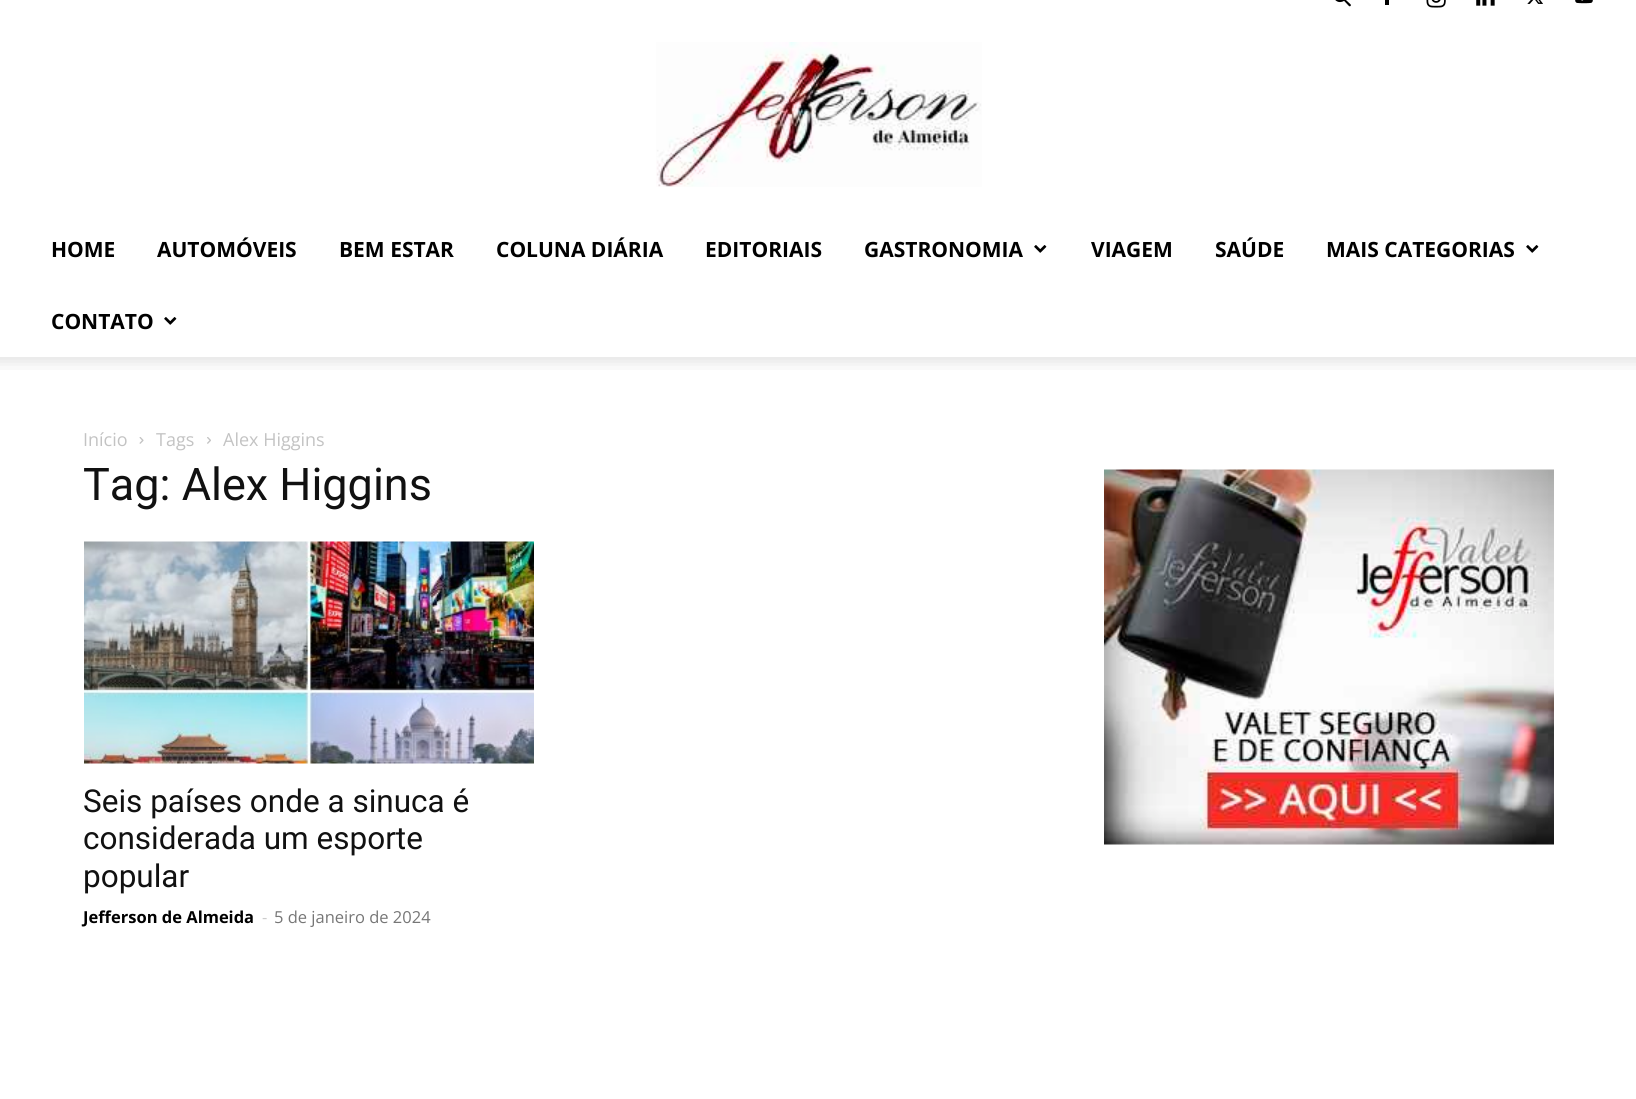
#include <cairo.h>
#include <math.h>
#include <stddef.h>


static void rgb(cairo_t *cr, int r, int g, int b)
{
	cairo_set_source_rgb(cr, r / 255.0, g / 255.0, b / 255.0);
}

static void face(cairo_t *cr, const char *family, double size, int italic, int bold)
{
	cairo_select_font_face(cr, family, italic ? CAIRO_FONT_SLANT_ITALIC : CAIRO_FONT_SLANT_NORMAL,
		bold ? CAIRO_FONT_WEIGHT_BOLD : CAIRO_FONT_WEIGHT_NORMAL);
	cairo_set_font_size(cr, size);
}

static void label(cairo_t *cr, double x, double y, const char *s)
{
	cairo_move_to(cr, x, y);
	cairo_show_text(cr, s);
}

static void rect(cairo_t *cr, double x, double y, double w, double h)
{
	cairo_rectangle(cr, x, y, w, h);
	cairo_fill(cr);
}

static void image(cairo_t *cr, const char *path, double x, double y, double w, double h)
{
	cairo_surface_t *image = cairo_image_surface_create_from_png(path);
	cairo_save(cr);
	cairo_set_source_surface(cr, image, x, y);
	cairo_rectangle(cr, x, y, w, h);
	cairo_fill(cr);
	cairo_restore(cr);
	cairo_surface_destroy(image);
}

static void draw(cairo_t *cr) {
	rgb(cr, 255, 255, 255);
	cairo_paint(cr);
	image(cr, "image0.png", 1335, 0, 16, 7);
	rgb(cr, 0, 0, 0);
	rect(cr, 1385, 0, 4, 5);
	image(cr, "image1.png", 1426, 0, 20, 8);
	image(cr, "image2.png", 1476, 0, 19, 6);
	image(cr, "image3.png", 1527, 0, 16, 4);
	image(cr, "image4.png", 1575, 0, 18, 4);
	image(cr, "image5.png", 656, 42, 326, 145);
	face(cr, "Open Sans", 21, 0, 1);
	label(cr, 51, 257, "HOME");
	label(cr, 157, 257, "AUTOMÓVEIS");
	label(cr, 339, 257, "BEM ESTAR");
	label(cr, 496, 257, "COLUNA DIÁRIA");
	label(cr, 705, 257, "EDITORIAIS");
	label(cr, 864, 257, "GASTRONOMIA");
	image(cr, "image6.png", 1034, 245, 13, 8);
	label(cr, 1091, 257, "VIAGEM");
	label(cr, 1215, 257, "SAÚDE");
	label(cr, 1326, 257, "MAIS CATEGORIAS");
	image(cr, "image6.png", 1526, 245, 13, 8);
	label(cr, 51, 329, "CONTATO");
	image(cr, "image6.png", 164, 317, 13, 8);
	image(cr, "image7.png", 0, 357, 1636, 13);
	face(cr, "Open Sans", 18, 0, 0);
	rgb(cr, 195, 195, 195);
	label(cr, 83, 446, "Início");
	image(cr, "image8.png", 139, 437, 5, 7);
	label(cr, 156, 446, "Tags");
	image(cr, "image9.png", 207, 437, 4, 7);
	label(cr, 223, 446, "Alex Higgins");
	face(cr, "Roboto", 45, 0, 0);
	rgb(cr, 17, 17, 17);
	label(cr, 83, 500, "Tag: Alex Higgins");
	image(cr, "image10.png", 84, 541, 450, 223);
	face(cr, "Roboto", 31.5, 0, 0);
	label(cr, 83, 812, "Seis países onde a sinuca é");
	label(cr, 83, 849, "considerada um esporte");
	label(cr, 83, 887, "popular");
	face(cr, "Open Sans", 16.5, 0, 1);
	rgb(cr, 0, 0, 0);
	label(cr, 83, 923, "Jefferson de Almeida");
	face(cr, "Open Sans", 16.5, 0, 0);
	rgb(cr, 204, 204, 204);
	label(cr, 262, 923, "-");
	rgb(cr, 118, 118, 118);
	label(cr, 274, 923, "5 de janeiro de 2024");
	image(cr, "image11.png", 1104, 469, 450, 376);
}

int main(void) {
	cairo_surface_t *surface = cairo_image_surface_create(CAIRO_FORMAT_RGB24, 1636, 1099);
	cairo_t *cr = cairo_create(surface);
	cairo_font_options_t *options = cairo_font_options_create();
	cairo_font_options_set_hint_metrics(options, CAIRO_HINT_METRICS_OFF);
	cairo_font_options_set_hint_style(options, CAIRO_HINT_STYLE_NONE);
	cairo_set_font_options(cr, options);
	cairo_set_miter_limit(cr, 4);
	draw(cr);
	cairo_surface_write_to_png(surface, "render.png");
	cairo_font_options_destroy(options);
	cairo_destroy(cr);
	cairo_surface_destroy(surface);
	return 0;
}
